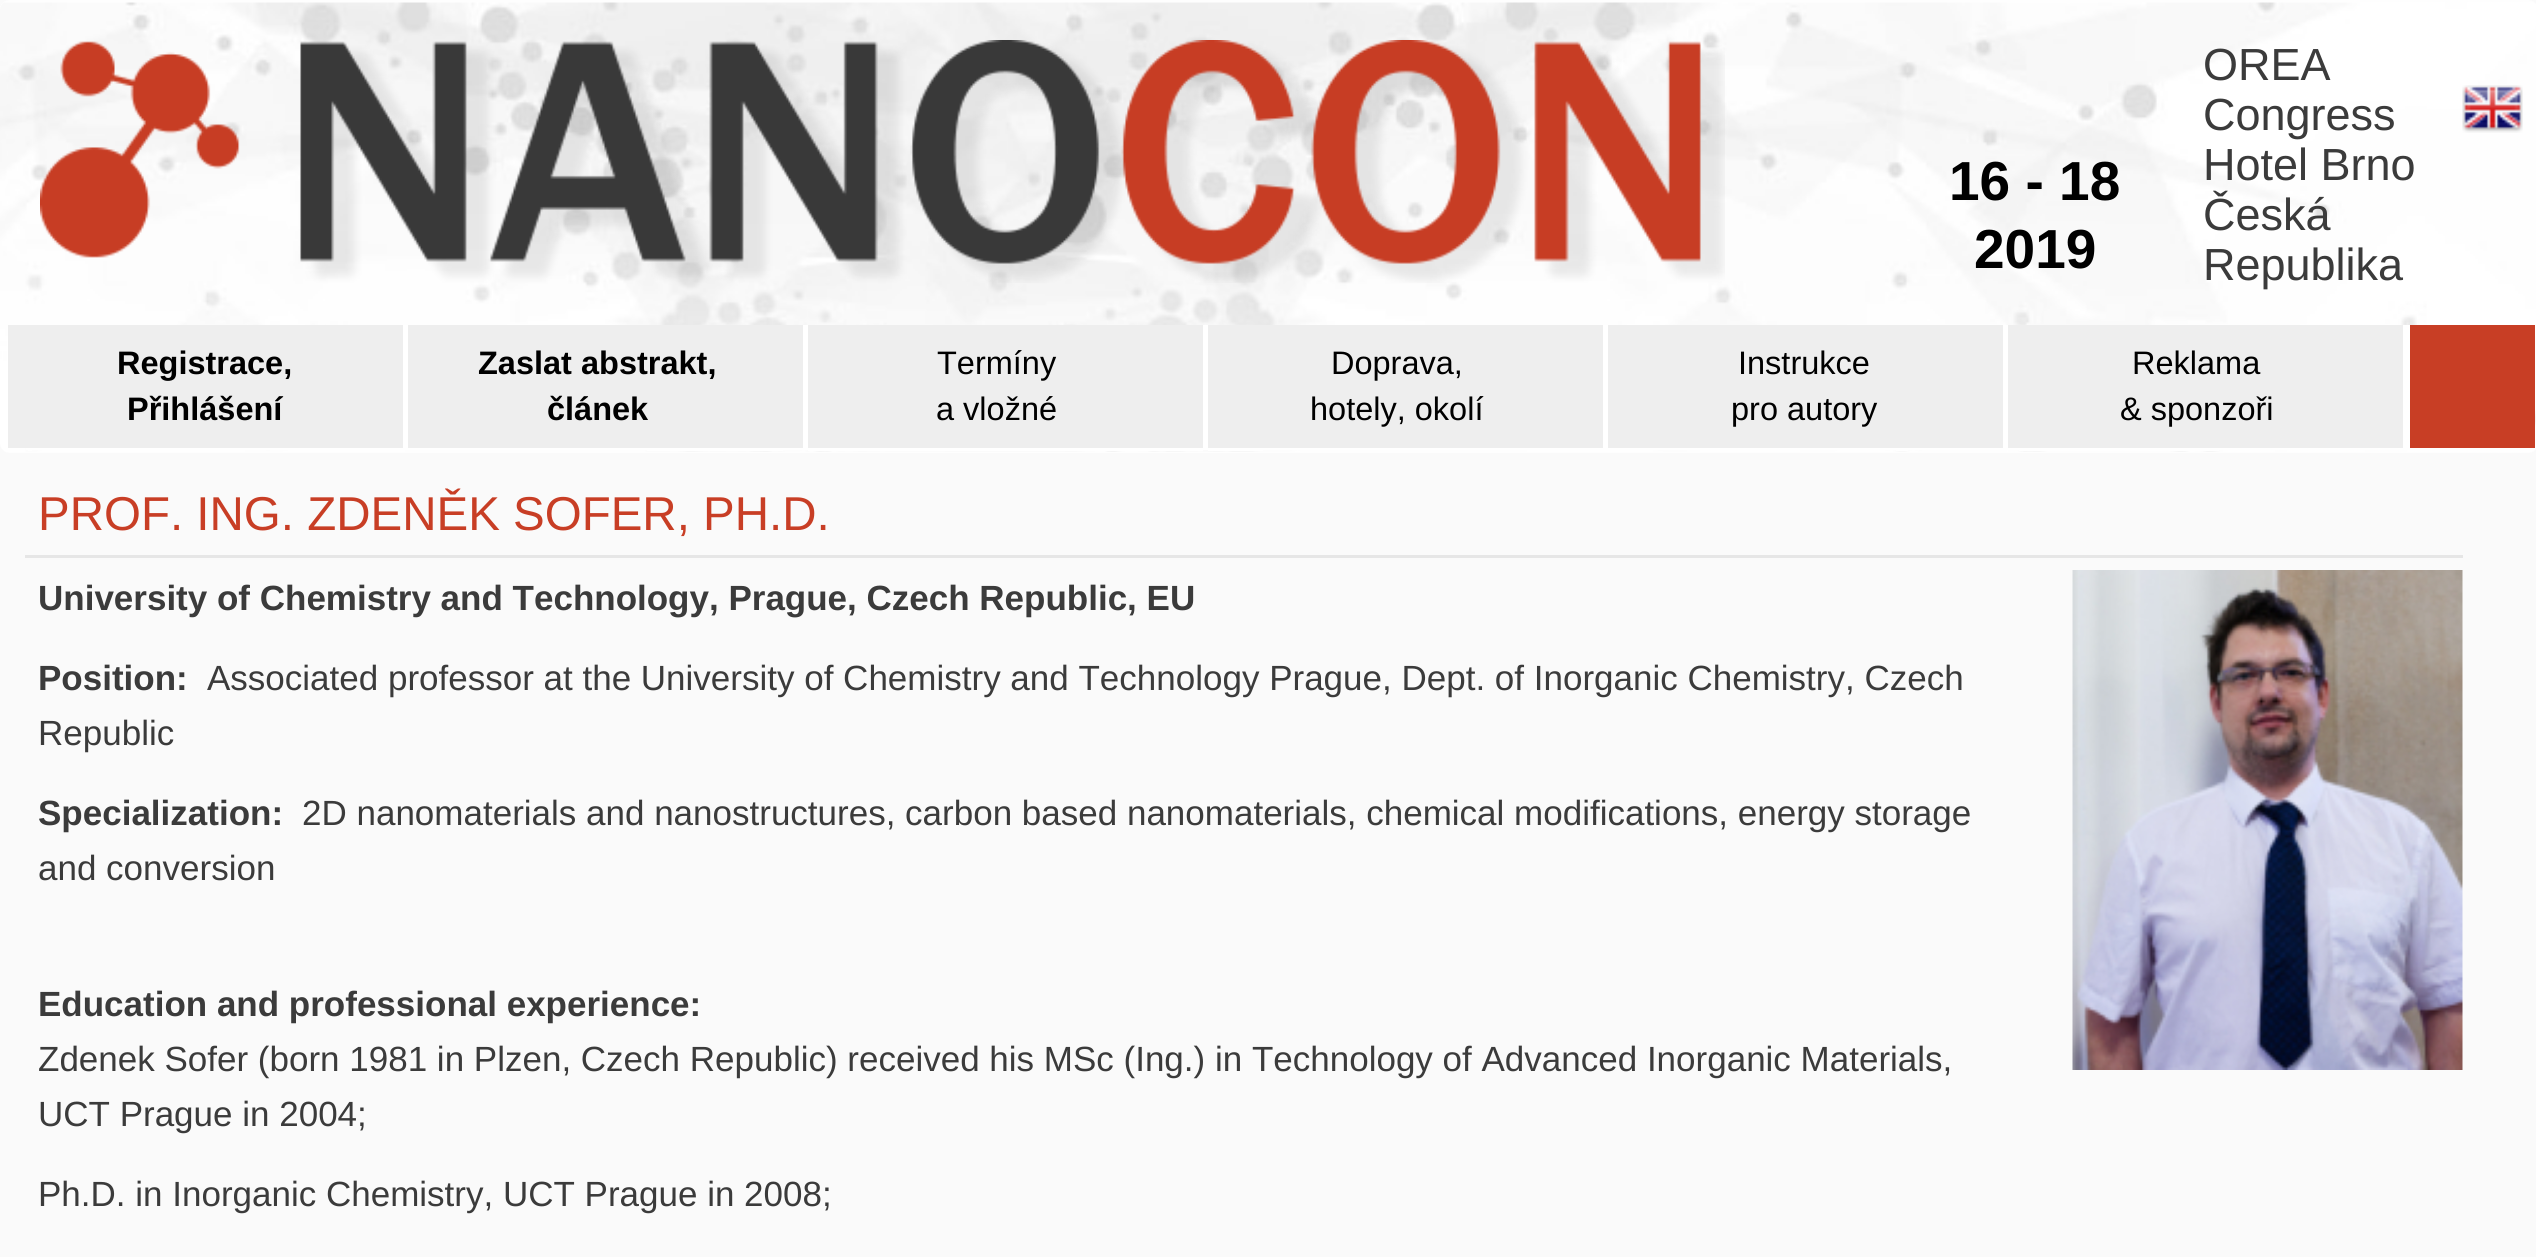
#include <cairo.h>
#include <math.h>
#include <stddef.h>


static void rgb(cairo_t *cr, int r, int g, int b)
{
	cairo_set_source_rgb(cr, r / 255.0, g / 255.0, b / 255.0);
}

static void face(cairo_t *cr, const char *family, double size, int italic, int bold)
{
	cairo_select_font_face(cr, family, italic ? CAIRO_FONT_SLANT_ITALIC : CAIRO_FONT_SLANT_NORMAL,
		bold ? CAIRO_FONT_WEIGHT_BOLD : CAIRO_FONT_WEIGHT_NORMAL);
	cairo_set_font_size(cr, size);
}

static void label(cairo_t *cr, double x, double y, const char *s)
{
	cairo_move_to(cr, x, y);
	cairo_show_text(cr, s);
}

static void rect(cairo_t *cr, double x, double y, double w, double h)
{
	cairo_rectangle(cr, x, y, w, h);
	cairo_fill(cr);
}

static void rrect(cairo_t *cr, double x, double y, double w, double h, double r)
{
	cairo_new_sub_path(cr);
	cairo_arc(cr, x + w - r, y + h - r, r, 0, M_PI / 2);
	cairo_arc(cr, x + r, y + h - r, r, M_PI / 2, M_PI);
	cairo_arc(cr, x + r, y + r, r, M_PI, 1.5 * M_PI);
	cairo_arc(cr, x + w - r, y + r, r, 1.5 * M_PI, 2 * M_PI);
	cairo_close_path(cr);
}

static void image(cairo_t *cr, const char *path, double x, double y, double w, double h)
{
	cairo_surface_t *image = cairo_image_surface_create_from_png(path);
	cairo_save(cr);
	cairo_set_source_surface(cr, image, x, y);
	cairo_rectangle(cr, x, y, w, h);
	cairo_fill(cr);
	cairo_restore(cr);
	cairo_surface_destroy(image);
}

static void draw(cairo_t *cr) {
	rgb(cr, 250, 250, 250);
	cairo_paint(cr);
	rgb(cr, 254, 254, 254);
	rrect(cr, 0, 0, 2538, 453, 10);
	cairo_fill(cr);
	image(cr, "image0.png", 0, 2, 2536, 450);
	image(cr, "image1.png", 40, 40, 1685, 243);
	face(cr, "Liberation Sans", 55, 0, 1);
	rgb(cr, 0, 0, 0);
	label(cr, 1949, 200, "16 - 18");
	label(cr, 1974, 268, "2019");
	face(cr, "Liberation Sans", 45, 0, 0);
	rgb(cr, 59, 59, 59);
	label(cr, 2203, 80, "OREA");
	label(cr, 2203, 130, "Congress");
	label(cr, 2203, 180, "Hotel Brno");
	label(cr, 2203, 230, "Česká");
	label(cr, 2203, 280, "Republika");
	image(cr, "image2.png", 2462, 85, 61, 48);
	rgb(cr, 255, 255, 255);
	rect(cr, 26, 325, 2509, 125);
	rgb(cr, 238, 238, 238);
	rect(cr, 8, 325, 395, 123);
	rgb(cr, 255, 255, 255);
	rect(cr, 28, 450, 4, 1);
	face(cr, "Liberation Sans", 32.5, 0, 1);
	rgb(cr, 0, 0, 0);
	label(cr, 117, 374, "Registrace,");
	label(cr, 127, 420, "Přihlášení");
	rgb(cr, 238, 238, 238);
	rect(cr, 408, 325, 395, 123);
	rgb(cr, 255, 255, 255);
	rect(cr, 647, 450, 136, 1);
	rgb(cr, 0, 0, 0);
	label(cr, 478, 374, "Zaslat abstrakt,");
	label(cr, 547, 420, "článek");
	rgb(cr, 238, 238, 238);
	rect(cr, 808, 325, 395, 123);
	rgb(cr, 255, 255, 255);
	rect(cr, 808, 450, 395, 1);
	face(cr, "Liberation Sans", 32.5, 0, 0);
	rgb(cr, 0, 0, 0);
	label(cr, 937, 374, "Termíny");
	label(cr, 936, 420, "a vložné");
	rgb(cr, 238, 238, 238);
	rect(cr, 1208, 325, 395, 123);
	rgb(cr, 255, 255, 255);
	rect(cr, 1208, 450, 55, 1);
	rgb(cr, 0, 0, 0);
	label(cr, 1331, 374, "Doprava,");
	label(cr, 1310, 420, "hotely, okolí");
	rgb(cr, 238, 238, 238);
	rect(cr, 1608, 325, 395, 123);
	rgb(cr, 255, 255, 255);
	rect(cr, 1896, 450, 12, 1);
	rgb(cr, 0, 0, 0);
	label(cr, 1738, 374, "Instrukce");
	label(cr, 1731, 420, "pro autory");
	rgb(cr, 238, 238, 238);
	rect(cr, 2008, 325, 395, 123);
	rgb(cr, 255, 255, 255);
	rect(cr, 2019, 450, 200, 1);
	rgb(cr, 0, 0, 0);
	label(cr, 2132, 374, "Reklama");
	label(cr, 2120, 420, "& sponzoři");
	rgb(cr, 200, 62, 37);
	rect(cr, 2410, 325, 125, 123);
	rgb(cr, 230, 230, 230);
	rect(cr, 25, 555, 2438, 3);
	face(cr, "Liberation Sans", 47.5, 0, 0);
	rgb(cr, 200, 62, 37);
	label(cr, 38, 530, "PROF. ING. ZDENĚK SOFER, PH.D.");
	face(cr, "Liberation Sans", 35, 0, 1);
	rgb(cr, 59, 59, 59);
	label(cr, 38, 610, "University of Chemistry and Technology, Prague, Czech Republic, EU");
	image(cr, "image3.png", 2072, 570, 391, 500);
	label(cr, 38, 690, "Position:");
	face(cr, "Liberation Sans", 35, 0, 0);
	label(cr, 207, 690, "Associated professor at the University of Chemistry and Technology Prague, Dept. of Inorganic Chemistry, Czech");
	label(cr, 38, 745, "Republic");
	face(cr, "Liberation Sans", 35, 0, 1);
	label(cr, 38, 825, "Specialization:");
	face(cr, "Liberation Sans", 35, 0, 0);
	label(cr, 302, 825, "2D nanomaterials and nanostructures, carbon based nanomaterials, chemical modifications, energy storage");
	label(cr, 38, 880, "and conversion");
	face(cr, "Liberation Sans", 35, 0, 1);
	label(cr, 38, 1016, "Education and professional experience:");
	face(cr, "Liberation Sans", 35, 0, 0);
	label(cr, 38, 1071, "Zdenek Sofer (born 1981 in Plzen, Czech Republic) received his MSc (Ing.) in Technology of Advanced Inorganic Materials,");
	label(cr, 38, 1126, "UCT Prague in 2004;");
	label(cr, 38, 1206, "Ph.D. in Inorganic Chemistry, UCT Prague in 2008;");
}

int main(void) {
	cairo_surface_t *surface = cairo_image_surface_create(CAIRO_FORMAT_RGB24, 2536, 1257);
	cairo_t *cr = cairo_create(surface);
	cairo_font_options_t *options = cairo_font_options_create();
	cairo_font_options_set_hint_metrics(options, CAIRO_HINT_METRICS_OFF);
	cairo_font_options_set_hint_style(options, CAIRO_HINT_STYLE_NONE);
	cairo_set_font_options(cr, options);
	cairo_set_miter_limit(cr, 4);
	draw(cr);
	cairo_surface_write_to_png(surface, "render.png");
	cairo_font_options_destroy(options);
	cairo_destroy(cr);
	cairo_surface_destroy(surface);
	return 0;
}
